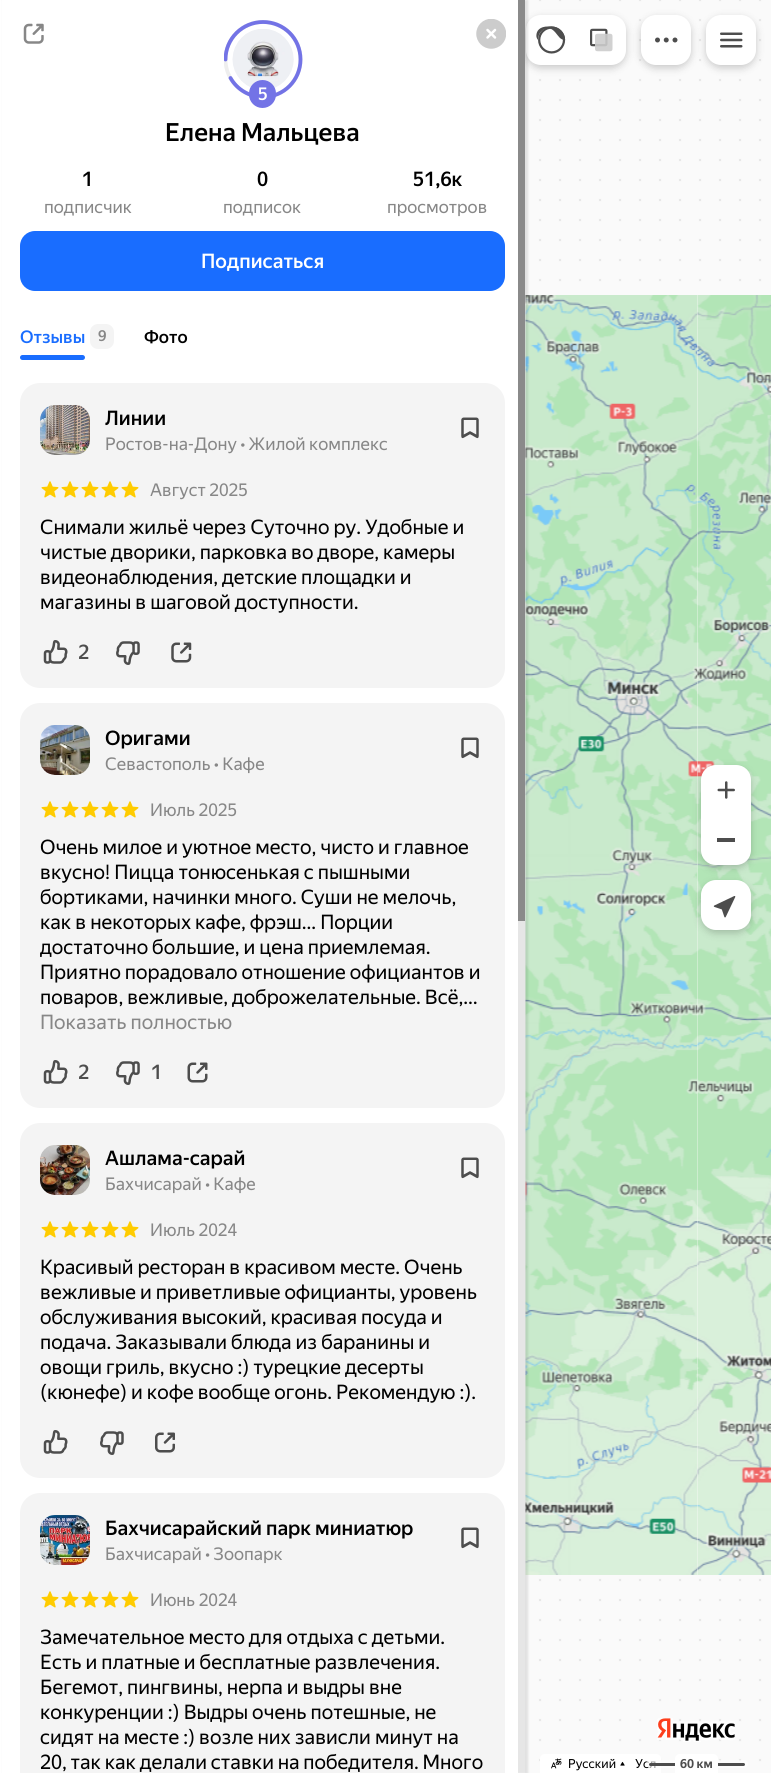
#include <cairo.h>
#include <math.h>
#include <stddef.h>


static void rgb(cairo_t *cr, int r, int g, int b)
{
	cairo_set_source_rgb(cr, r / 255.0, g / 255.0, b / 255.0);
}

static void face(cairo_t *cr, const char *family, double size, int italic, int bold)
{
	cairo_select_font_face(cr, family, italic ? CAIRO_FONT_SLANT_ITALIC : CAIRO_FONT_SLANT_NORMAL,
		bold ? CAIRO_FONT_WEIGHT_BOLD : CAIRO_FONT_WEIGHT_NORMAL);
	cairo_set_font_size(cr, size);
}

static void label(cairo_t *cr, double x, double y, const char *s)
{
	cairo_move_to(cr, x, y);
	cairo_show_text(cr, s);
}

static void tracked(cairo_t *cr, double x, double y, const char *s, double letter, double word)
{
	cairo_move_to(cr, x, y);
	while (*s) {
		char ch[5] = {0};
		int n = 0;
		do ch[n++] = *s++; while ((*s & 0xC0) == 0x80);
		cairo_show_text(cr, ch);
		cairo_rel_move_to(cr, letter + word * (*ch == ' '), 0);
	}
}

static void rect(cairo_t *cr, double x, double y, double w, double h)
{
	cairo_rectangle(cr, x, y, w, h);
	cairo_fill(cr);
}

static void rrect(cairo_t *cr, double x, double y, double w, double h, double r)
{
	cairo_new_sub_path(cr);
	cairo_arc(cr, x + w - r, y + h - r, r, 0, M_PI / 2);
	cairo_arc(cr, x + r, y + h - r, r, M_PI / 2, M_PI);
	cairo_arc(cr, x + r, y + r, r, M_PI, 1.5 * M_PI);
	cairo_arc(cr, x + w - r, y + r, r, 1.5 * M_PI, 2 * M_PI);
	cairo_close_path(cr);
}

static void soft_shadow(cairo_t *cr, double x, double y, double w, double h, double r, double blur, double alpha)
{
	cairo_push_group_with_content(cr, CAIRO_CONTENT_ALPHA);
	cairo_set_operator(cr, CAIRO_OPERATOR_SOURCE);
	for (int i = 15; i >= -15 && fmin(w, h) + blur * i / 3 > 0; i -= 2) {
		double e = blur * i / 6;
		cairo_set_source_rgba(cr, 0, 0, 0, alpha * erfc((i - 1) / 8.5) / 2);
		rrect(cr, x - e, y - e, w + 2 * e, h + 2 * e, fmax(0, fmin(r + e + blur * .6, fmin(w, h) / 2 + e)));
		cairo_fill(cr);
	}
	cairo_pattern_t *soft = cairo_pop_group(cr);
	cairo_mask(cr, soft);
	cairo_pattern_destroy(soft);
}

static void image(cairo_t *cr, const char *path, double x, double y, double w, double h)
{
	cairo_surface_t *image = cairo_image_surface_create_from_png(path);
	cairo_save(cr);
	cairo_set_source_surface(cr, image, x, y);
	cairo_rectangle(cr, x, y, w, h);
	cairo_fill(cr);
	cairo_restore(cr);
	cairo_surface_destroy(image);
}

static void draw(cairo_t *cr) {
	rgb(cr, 255, 255, 255);
	cairo_paint(cr);
	image(cr, "image0.png", 525, 0, 246, 1773);
	rgb(cr, 0, 0, 0);
	soft_shadow(cr, 526, 18, 100, 50, 15, 4, 0.2);
	rgb(cr, 255, 255, 255);
	cairo_new_path(cr);
	cairo_move_to(cr, 541, 15);
	cairo_line_to(cr, 576, 15);
	cairo_line_to(cr, 576, 65);
	cairo_line_to(cr, 541, 65);
	cairo_curve_to(cr, 532.5, 65, 526, 58.5, 526, 50);
	cairo_line_to(cr, 526, 30);
	cairo_curve_to(cr, 526, 21.5, 532.5, 15, 541, 15);
	cairo_close_path(cr);
	cairo_fill(cr);
	image(cr, "image25.png", 525, 295, 173, 320);
	image(cr, "image27.png", 525, 615, 173, 320);
	image(cr, "image29.png", 525, 935, 173, 320);
	image(cr, "image31.png", 525, 1255, 173, 320);
	rgb(cr, 0, 0, 0);
	soft_shadow(cr, 3, 0, 525, 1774, 0, 1, 0.1);
	rgb(cr, 255, 255, 255);
	rect(cr, 2, 0, 516, 1773);
	image(cr, "image1.png", 23, 23, 21, 21);
	image(cr, "image2.png", 476, 19, 30, 30);
	image(cr, "image3.png", 232, 29, 62, 59);
	cairo_save(cr);
	cairo_rectangle(cr, 224, 20, 79, 79);
	cairo_clip(cr);
	cairo_arc(cr, 263, 59.5, 37.5, 0, 2 * M_PI);
	rgb(cr, 238, 238, 238);
	cairo_set_line_width(cr, 3.8);
	cairo_stroke(cr);
	cairo_new_path(cr);
	cairo_move_to(cr, 225.5, 59.5);
	cairo_curve_to(cr, 225.5, 38.5, 242.5, 22, 263, 22);
	cairo_curve_to(cr, 284, 22, 300.5, 38.5, 300.5, 59.5);
	cairo_curve_to(cr, 300.5, 80, 284, 97, 263, 97);
	cairo_curve_to(cr, 249.5, 97, 237, 89.5, 230.5, 78);
	rgb(cr, 115, 115, 230);
	cairo_set_line_cap(cr, CAIRO_LINE_CAP_ROUND);
	cairo_stroke(cr);
	cairo_restore(cr);
	rgb(cr, 115, 115, 230);
	rrect(cr, 249, 80, 27, 28, 13.5);
	cairo_fill(cr);
	face(cr, "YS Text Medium", 17.5, 0, 0);
	rgb(cr, 255, 255, 255);
	label(cr, 258, 100, "5");
	face(cr, "YS Text Medium", 25, 0, 0);
	rgb(cr, 0, 0, 0);
	label(cr, 165, 141, "Елена Мальцева");
	face(cr, "YS Text Medium", 20, 0, 0);
	label(cr, 82, 186, "1");
	face(cr, "YS Text", 17.5, 0, 0);
	rgb(cr, 135, 135, 135);
	label(cr, 44, 213, "подписчик");
	face(cr, "YS Text Medium", 20, 0, 0);
	rgb(cr, 0, 0, 0);
	label(cr, 257, 186, "0");
	face(cr, "YS Text", 17.5, 0, 0);
	rgb(cr, 135, 135, 135);
	label(cr, 223, 213, "подписок");
	face(cr, "YS Text Medium", 20, 0, 0);
	rgb(cr, 0, 0, 0);
	label(cr, 413, 186, "51,6к");
	face(cr, "YS Text", 17.5, 0, 0);
	rgb(cr, 135, 135, 135);
	label(cr, 387, 213, "просмотров");
	rgb(cr, 25, 109, 255);
	rrect(cr, 20, 231, 485, 60, 15);
	cairo_fill(cr);
	face(cr, "YS Text Medium", 20, 0, 0);
	rgb(cr, 255, 255, 255);
	label(cr, 201, 268, "Подписаться");
	face(cr, "YS Text Medium", 17.5, 0, 0);
	rgb(cr, 25, 109, 255);
	label(cr, 20, 343, "Отзывы");
	rgb(cr, 244, 244, 244);
	rrect(cr, 90, 324, 24, 25, 8);
	cairo_fill(cr);
	face(cr, "YS Text Medium", 15, 0, 0);
	rgb(cr, 135, 135, 135);
	label(cr, 98, 341, "9");
	face(cr, "YS Text Medium", 17.5, 0, 0);
	rgb(cr, 0, 0, 0);
	label(cr, 144, 343, "Фото");
	rgb(cr, 25, 109, 255);
	rrect(cr, 20, 355, 65, 5, 2.5);
	cairo_fill(cr);
	rgb(cr, 244, 244, 244);
	rrect(cr, 20, 383, 485, 305, 20);
	cairo_fill(cr);
	rgb(cr, 255, 255, 255);
	rrect(cr, 40, 405, 50, 50, 15);
	cairo_fill(cr);
	image(cr, "image4.png", 40, 405, 50, 50);
	face(cr, "YS Text Medium", 20, 0, 0);
	rgb(cr, 0, 0, 0);
	label(cr, 105, 425, "Линии");
	face(cr, "YS Text", 17.5, 0, 0);
	rgb(cr, 135, 135, 135);
	label(cr, 105, 450, "Ростов-на-Дону • Жилой комплекс");
	image(cr, "image5.png", 461, 417, 18, 22);
	image(cr, "image6.png", 41, 481, 18, 17);
	image(cr, "image6.png", 61, 481, 18, 17);
	image(cr, "image6.png", 81, 481, 18, 17);
	image(cr, "image6.png", 101, 481, 18, 17);
	image(cr, "image6.png", 121, 481, 18, 17);
	label(cr, 150, 496, "Август 2025");
	face(cr, "YS Text", 20, 0, 0);
	rgb(cr, 0, 0, 0);
	label(cr, 40, 534, "Снимали жильё через Суточно ру. Удобные и");
	label(cr, 40, 559, "чистые дворики, парковка во дворе, камеры");
	label(cr, 40, 584, "видеонаблюдения, детские площадки и");
	label(cr, 40, 609, "магазины в шаговой доступности.");
	image(cr, "image7.png", 43, 640, 25, 24);
	face(cr, "YS Text Medium", 20, 0, 0);
	rgb(cr, 77, 77, 77);
	label(cr, 78, 659, "2");
	image(cr, "image8.png", 116, 641, 24, 24);
	image(cr, "image9.png", 171, 642, 21, 21);
	rgb(cr, 244, 244, 244);
	rrect(cr, 20, 703, 485, 405, 20);
	cairo_fill(cr);
	rgb(cr, 255, 255, 255);
	rrect(cr, 40, 725, 50, 50, 15);
	cairo_fill(cr);
	image(cr, "image10.png", 40, 725, 50, 50);
	rgb(cr, 0, 0, 0);
	label(cr, 105, 745, "Оригами");
	face(cr, "YS Text", 17.5, 0, 0);
	rgb(cr, 135, 135, 135);
	label(cr, 105, 770, "Севастополь • Кафе");
	image(cr, "image5.png", 461, 737, 18, 22);
	image(cr, "image6.png", 41, 801, 18, 17);
	image(cr, "image6.png", 61, 801, 18, 17);
	image(cr, "image6.png", 81, 801, 18, 17);
	image(cr, "image6.png", 101, 801, 18, 17);
	image(cr, "image6.png", 121, 801, 18, 17);
	label(cr, 150, 816, "Июль 2025");
	face(cr, "YS Text", 20, 0, 0);
	rgb(cr, 0, 0, 0);
	label(cr, 40, 854, "Очень милое и уютное место, чисто и главное");
	label(cr, 40, 879, "вкусно! Пицца тонюсенькая с пышными");
	label(cr, 40, 904, "бортиками, начинки много. Суши не мелочь,");
	label(cr, 40, 929, "как в некоторых кафе, фрэш... Порции");
	label(cr, 40, 954, "достаточно большие, и цена приемлемая.");
	label(cr, 40, 979, "Приятно порадовало отношение официантов и");
	label(cr, 40, 1004, "поваров, вежливые, доброжелательные. Всё,…");
	rgb(cr, 135, 135, 135);
	label(cr, 40, 1029, "Показать полностью");
	image(cr, "image7.png", 43, 1060, 25, 24);
	face(cr, "YS Text Medium", 20, 0, 0);
	rgb(cr, 77, 77, 77);
	label(cr, 78, 1079, "2");
	image(cr, "image8.png", 116, 1061, 24, 24);
	label(cr, 151, 1079, "1");
	image(cr, "image11.png", 187, 1062, 21, 21);
	rgb(cr, 244, 244, 244);
	rrect(cr, 20, 1123, 485, 355, 20);
	cairo_fill(cr);
	rgb(cr, 255, 255, 255);
	rrect(cr, 40, 1145, 50, 50, 15);
	cairo_fill(cr);
	image(cr, "image12.png", 40, 1145, 50, 50);
	rgb(cr, 0, 0, 0);
	label(cr, 105, 1165, "Ашлама-сарай");
	face(cr, "YS Text", 17.5, 0, 0);
	rgb(cr, 135, 135, 135);
	label(cr, 105, 1190, "Бахчисарай • Кафе");
	image(cr, "image5.png", 461, 1157, 18, 22);
	image(cr, "image6.png", 41, 1221, 18, 17);
	image(cr, "image6.png", 61, 1221, 18, 17);
	image(cr, "image6.png", 81, 1221, 18, 17);
	image(cr, "image6.png", 101, 1221, 18, 17);
	image(cr, "image6.png", 121, 1221, 18, 17);
	label(cr, 150, 1236, "Июль 2024");
	face(cr, "YS Text", 20, 0, 0);
	rgb(cr, 0, 0, 0);
	label(cr, 40, 1274, "Красивый ресторан в красивом месте. Очень");
	label(cr, 40, 1299, "вежливые и приветливые официанты, уровень");
	label(cr, 40, 1324, "обслуживания высокий, красивая посуда и");
	label(cr, 40, 1349, "подача. Заказывали блюда из баранины и");
	label(cr, 40, 1374, "овощи гриль, вкусно :) турецкие десерты");
	label(cr, 40, 1399, "(кюнефе) и кофе вообще огонь. Рекомендую :).");
	image(cr, "image7.png", 43, 1430, 25, 24);
	image(cr, "image13.png", 100, 1431, 24, 24);
	image(cr, "image14.png", 155, 1432, 20, 21);
	rgb(cr, 244, 244, 244);
	cairo_new_path(cr);
	cairo_move_to(cr, 40, 1493);
	cairo_line_to(cr, 485, 1493);
	cairo_curve_to(cr, 496, 1493, 505, 1502, 505, 1513);
	cairo_line_to(cr, 505, 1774);
	cairo_line_to(cr, 20, 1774);
	cairo_line_to(cr, 20, 1513);
	cairo_curve_to(cr, 20, 1502, 29, 1493, 40, 1493);
	cairo_close_path(cr);
	cairo_fill(cr);
	rgb(cr, 255, 255, 255);
	rrect(cr, 40, 1515, 50, 50, 15);
	cairo_fill(cr);
	image(cr, "image15.png", 40, 1515, 50, 50);
	face(cr, "YS Text Medium", 20, 0, 0);
	rgb(cr, 0, 0, 0);
	label(cr, 105, 1535, "Бахчисарайский парк миниатюр");
	face(cr, "YS Text", 17.5, 0, 0);
	rgb(cr, 135, 135, 135);
	label(cr, 105, 1560, "Бахчисарай • Зоопарк");
	image(cr, "image5.png", 461, 1527, 18, 22);
	image(cr, "image6.png", 41, 1591, 18, 17);
	image(cr, "image6.png", 61, 1591, 18, 17);
	image(cr, "image6.png", 81, 1591, 18, 17);
	image(cr, "image6.png", 101, 1591, 18, 17);
	image(cr, "image6.png", 121, 1591, 18, 17);
	label(cr, 150, 1606, "Июнь 2024");
	face(cr, "YS Text", 20, 0, 0);
	rgb(cr, 0, 0, 0);
	label(cr, 40, 1644, "Замечательное место для отдыха с детьми.");
	label(cr, 40, 1669, "Есть и платные и бесплатные развлечения.");
	label(cr, 40, 1694, "Бегемот, пингвины, нерпа и выдры вне");
	label(cr, 40, 1719, "конкуренции :) Выдры очень потешные, не");
	label(cr, 40, 1744, "сидят на месте :) возле них зависли минут на");
	tracked(cr, 40, 1769, "20, так как делали ставки на победителя. Много", 0, -0.25);
	rgb(cr, 138, 138, 138);
	rect(cr, 518, 0, 7, 921);
	image(cr, "image16.png", 536, 26, 30, 28);
	rgb(cr, 255, 255, 255);
	cairo_new_path(cr);
	cairo_move_to(cr, 576, 15);
	cairo_line_to(cr, 611, 15);
	cairo_curve_to(cr, 619.5, 15, 626, 21.5, 626, 30);
	cairo_line_to(cr, 626, 50);
	cairo_curve_to(cr, 626, 58.5, 619.5, 65, 611, 65);
	cairo_line_to(cr, 576, 65);
	cairo_close_path(cr);
	cairo_fill(cr);
	image(cr, "image17.png", 590, 28, 23, 24);
	rgb(cr, 0, 0, 0);
	soft_shadow(cr, 641, 18, 50, 50, 15, 4, 0.2);
	rgb(cr, 255, 255, 255);
	rrect(cr, 641, 15, 50, 50, 15);
	cairo_fill(cr);
	image(cr, "image18.png", 655, 37, 23, 6);
	rgb(cr, 0, 0, 0);
	soft_shadow(cr, 706, 18, 50, 50, 15, 4, 0.2);
	rgb(cr, 255, 255, 255);
	rrect(cr, 706, 15, 50, 50, 15);
	cairo_fill(cr);
	image(cr, "image19.png", 720, 32, 23, 16);
	image(cr, "image28.png", 697, 615, 74, 320);
	rgb(cr, 0, 0, 0);
	soft_shadow(cr, 701, 768, 50, 100, 15, 4, 0.2);
	rgb(cr, 255, 255, 255);
	cairo_new_path(cr);
	cairo_move_to(cr, 716, 765);
	cairo_line_to(cr, 736, 765);
	cairo_curve_to(cr, 744.5, 765, 751, 771.5, 751, 780);
	cairo_line_to(cr, 751, 815);
	cairo_line_to(cr, 701, 815);
	cairo_line_to(cr, 701, 780);
	cairo_curve_to(cr, 701, 771.5, 707.5, 765, 716, 765);
	cairo_close_path(cr);
	cairo_fill(cr);
	image(cr, "image20.png", 717, 781, 18, 18);
	cairo_new_path(cr);
	cairo_move_to(cr, 701, 815);
	cairo_line_to(cr, 751, 815);
	cairo_line_to(cr, 751, 850);
	cairo_curve_to(cr, 751, 858.5, 744.5, 865, 736, 865);
	cairo_line_to(cr, 716, 865);
	cairo_curve_to(cr, 707.5, 865, 701, 858.5, 701, 850);
	cairo_close_path(cr);
	cairo_fill(cr);
	rgb(cr, 77, 77, 77);
	rect(cr, 717, 838, 18, 4);
	image(cr, "image30.png", 697, 935, 74, 320);
	rgb(cr, 0, 0, 0);
	soft_shadow(cr, 701, 883, 50, 50, 15, 4, 0.2);
	rgb(cr, 255, 255, 255);
	rrect(cr, 701, 880, 50, 50, 15);
	cairo_fill(cr);
	image(cr, "image21.png", 713, 896, 23, 22);
	image(cr, "image22.png", 657, 1718, 78, 24);
	cairo_new_path(cr);
	cairo_move_to(cr, 545, 1754);
	cairo_line_to(cr, 656, 1754);
	cairo_curve_to(cr, 659, 1754, 661, 1756, 661, 1759);
	cairo_line_to(cr, 661, 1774);
	cairo_line_to(cr, 540, 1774);
	cairo_line_to(cr, 540, 1759);
	cairo_curve_to(cr, 540, 1756, 542, 1754, 545, 1754);
	cairo_close_path(cr);
	cairo_fill(cr);
	image(cr, "image23.png", 551, 1758, 11, 11);
	face(cr, "YS Text", 12.5, 0, 0);
	rgb(cr, 0, 0, 0);
	label(cr, 568, 1768, "Русский");
	image(cr, "image24.png", 620, 1761, 5, 5);
	label(cr, 635, 1768, "Усл");
	cairo_set_source_rgba(cr, 1, 1, 1, 0.6);
	rrect(cr, 646, 1760, 102, 8, 4);
	cairo_fill(cr);
	rgb(cr, 77, 77, 77);
	rrect(cr, 649, 1763, 96, 3, 1.5);
	cairo_fill(cr);
	rgb(cr, 255, 255, 255);
	cairo_new_path(cr);
	cairo_move_to(cr, 680, 1754);
	cairo_line_to(cr, 713, 1754);
	cairo_curve_to(cr, 716, 1754, 718, 1756, 718, 1759);
	cairo_line_to(cr, 718, 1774);
	cairo_line_to(cr, 675, 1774);
	cairo_line_to(cr, 675, 1759);
	cairo_curve_to(cr, 675, 1756, 677, 1754, 680, 1754);
	cairo_close_path(cr);
	cairo_fill(cr);
	face(cr, "YS Text", 12.5, 0, 1);
	rgb(cr, 77, 77, 77);
	label(cr, 680, 1768, "60 км");
	image(cr, "image26.png", 697, 295, 74, 320);
	image(cr, "image32.png", 697, 1255, 74, 320);
}

int main(void) {
	cairo_surface_t *surface = cairo_image_surface_create(CAIRO_FORMAT_RGB24, 771, 1773);
	cairo_t *cr = cairo_create(surface);
	cairo_font_options_t *options = cairo_font_options_create();
	cairo_font_options_set_hint_metrics(options, CAIRO_HINT_METRICS_OFF);
	cairo_font_options_set_hint_style(options, CAIRO_HINT_STYLE_NONE);
	cairo_set_font_options(cr, options);
	cairo_set_miter_limit(cr, 4);
	draw(cr);
	cairo_surface_write_to_png(surface, "render.png");
	cairo_font_options_destroy(options);
	cairo_destroy(cr);
	cairo_surface_destroy(surface);
	return 0;
}
